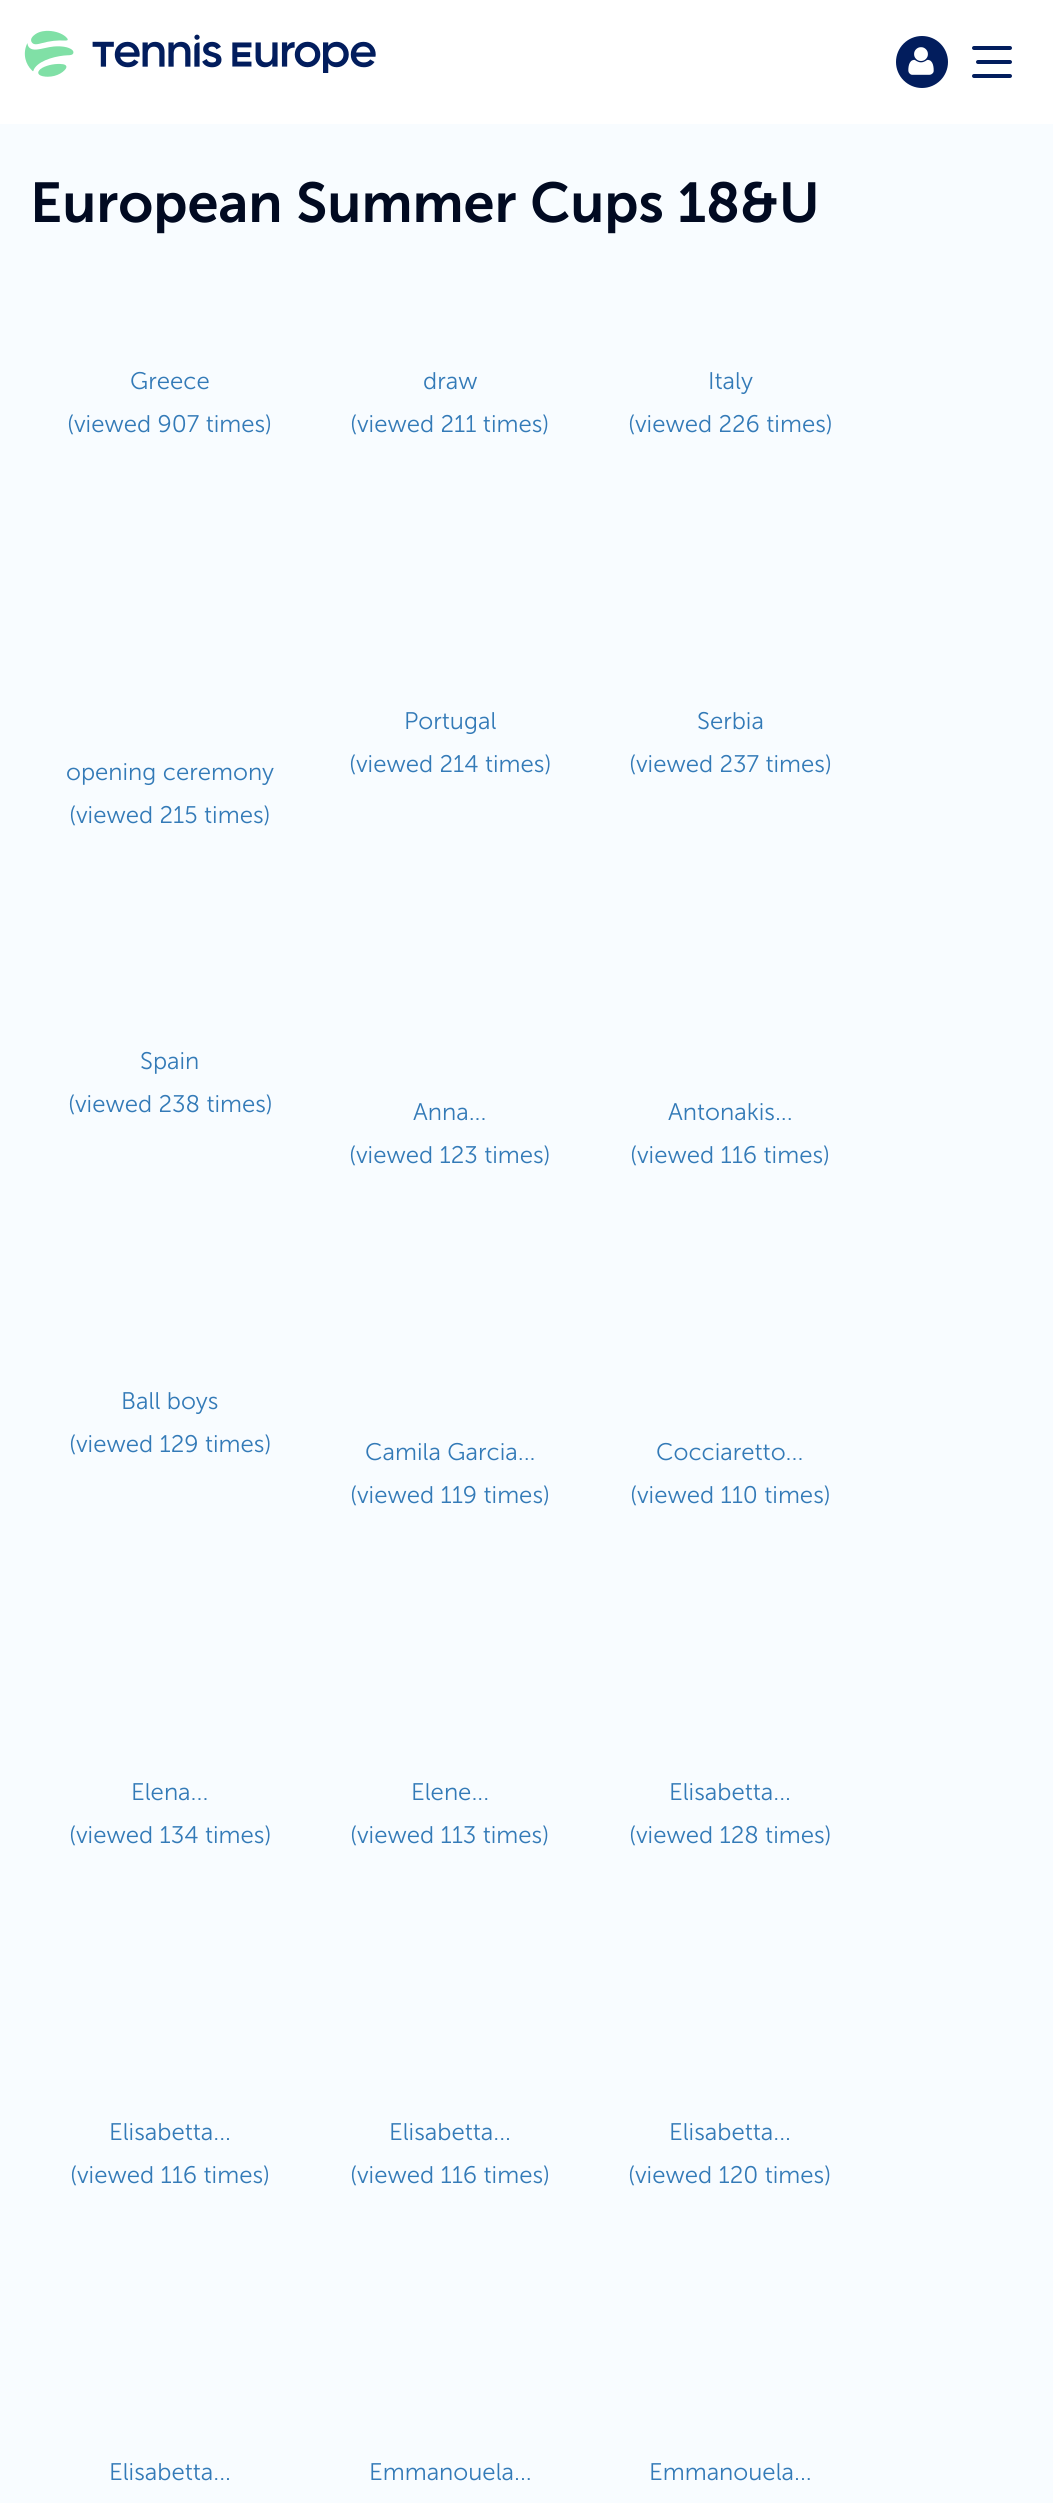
#include <cairo.h>
#include <math.h>
#include <stddef.h>


static void rgb(cairo_t *cr, int r, int g, int b)
{
	cairo_set_source_rgb(cr, r / 255.0, g / 255.0, b / 255.0);
}

static void face(cairo_t *cr, const char *family, double size, int italic, int bold)
{
	cairo_select_font_face(cr, family, italic ? CAIRO_FONT_SLANT_ITALIC : CAIRO_FONT_SLANT_NORMAL,
		bold ? CAIRO_FONT_WEIGHT_BOLD : CAIRO_FONT_WEIGHT_NORMAL);
	cairo_set_font_size(cr, size);
}

static void label(cairo_t *cr, double x, double y, const char *s)
{
	cairo_move_to(cr, x, y);
	cairo_show_text(cr, s);
}

static void rect(cairo_t *cr, double x, double y, double w, double h)
{
	cairo_rectangle(cr, x, y, w, h);
	cairo_fill(cr);
}

static void rrect(cairo_t *cr, double x, double y, double w, double h, double r)
{
	cairo_new_sub_path(cr);
	cairo_arc(cr, x + w - r, y + h - r, r, 0, M_PI / 2);
	cairo_arc(cr, x + r, y + h - r, r, M_PI / 2, M_PI);
	cairo_arc(cr, x + r, y + r, r, M_PI, 1.5 * M_PI);
	cairo_arc(cr, x + w - r, y + r, r, 1.5 * M_PI, 2 * M_PI);
	cairo_close_path(cr);
}

static void image(cairo_t *cr, const char *path, double x, double y, double w, double h)
{
	cairo_surface_t *image = cairo_image_surface_create_from_png(path);
	cairo_save(cr);
	cairo_set_source_surface(cr, image, x, y);
	cairo_rectangle(cr, x, y, w, h);
	cairo_fill(cr);
	cairo_restore(cr);
	cairo_surface_destroy(image);
}

static void draw(cairo_t *cr) {
	rgb(cr, 255, 255, 255);
	cairo_paint(cr);
	image(cr, "image0.png", 24, 30, 352, 47);
	rgb(cr, 2, 29, 93);
	rrect(cr, 972, 46, 40, 4, 2);
	cairo_fill(cr);
	rrect(cr, 976, 60, 36, 4, 2);
	cairo_fill(cr);
	rrect(cr, 972, 74, 40, 4, 2);
	cairo_fill(cr);
	cairo_arc(cr, 922, 62, 26, 0, 2 * M_PI);
	cairo_fill(cr);
	image(cr, "image1.png", 908, 47, 26, 28);
	rgb(cr, 248, 252, 255);
	rect(cr, 0, 124, 1053, 2379);
	face(cr, "Museo Sans SemiBold", 56, 0, 0);
	rgb(cr, 1, 10, 33);
	label(cr, 30, 222, "European Summer Cups 18&U");
	face(cr, "Museo Sans Light", 24, 0, 0);
	rgb(cr, 51, 122, 183);
	label(cr, 130, 389, "Greece");
	label(cr, 67, 432, "(viewed 907 times)");
	label(cr, 423, 389, "draw");
	label(cr, 350, 432, "(viewed 211 times)");
	label(cr, 708, 389, "Italy");
	label(cr, 628, 432, "(viewed 226 times)");
	label(cr, 404, 729, "Portugal");
	label(cr, 349, 772, "(viewed 214 times)");
	label(cr, 697, 729, "Serbia");
	label(cr, 629, 772, "(viewed 237 times)");
	label(cr, 66, 780, "opening ceremony");
	label(cr, 69, 823, "(viewed 215 times)");
	label(cr, 140, 1069, "Spain");
	label(cr, 68, 1112, "(viewed 238 times)");
	label(cr, 413, 1120, "Anna...");
	label(cr, 349, 1163, "(viewed 123 times)");
	label(cr, 668, 1120, "Antonakis...");
	label(cr, 630, 1163, "(viewed 116 times)");
	label(cr, 121, 1409, "Ball boys");
	label(cr, 69, 1452, "(viewed 129 times)");
	label(cr, 365, 1460, "Camila Garcia...");
	label(cr, 350, 1503, "(viewed 119 times)");
	label(cr, 656, 1460, "Cocciaretto...");
	label(cr, 630, 1503, "(viewed 110 times)");
	label(cr, 131, 1800, "Elena...");
	label(cr, 69, 1843, "(viewed 134 times)");
	label(cr, 411, 1800, "Elene...");
	label(cr, 350, 1843, "(viewed 113 times)");
	label(cr, 669, 1800, "Elisabetta...");
	label(cr, 629, 1843, "(viewed 128 times)");
	label(cr, 109, 2140, "Elisabetta...");
	label(cr, 70, 2183, "(viewed 116 times)");
	label(cr, 389, 2140, "Elisabetta...");
	label(cr, 350, 2183, "(viewed 116 times)");
	label(cr, 669, 2140, "Elisabetta...");
	label(cr, 628, 2183, "(viewed 120 times)");
	label(cr, 109, 2480, "Elisabetta...");
	label(cr, 369, 2480, "Emmanouela...");
	label(cr, 649, 2480, "Emmanouela...");
}

int main(void) {
	cairo_surface_t *surface = cairo_image_surface_create(CAIRO_FORMAT_RGB24, 1053, 2503);
	cairo_t *cr = cairo_create(surface);
	cairo_font_options_t *options = cairo_font_options_create();
	cairo_font_options_set_hint_metrics(options, CAIRO_HINT_METRICS_OFF);
	cairo_font_options_set_hint_style(options, CAIRO_HINT_STYLE_NONE);
	cairo_set_font_options(cr, options);
	cairo_set_miter_limit(cr, 4);
	draw(cr);
	cairo_surface_write_to_png(surface, "render.png");
	cairo_font_options_destroy(options);
	cairo_destroy(cr);
	cairo_surface_destroy(surface);
	return 0;
}
